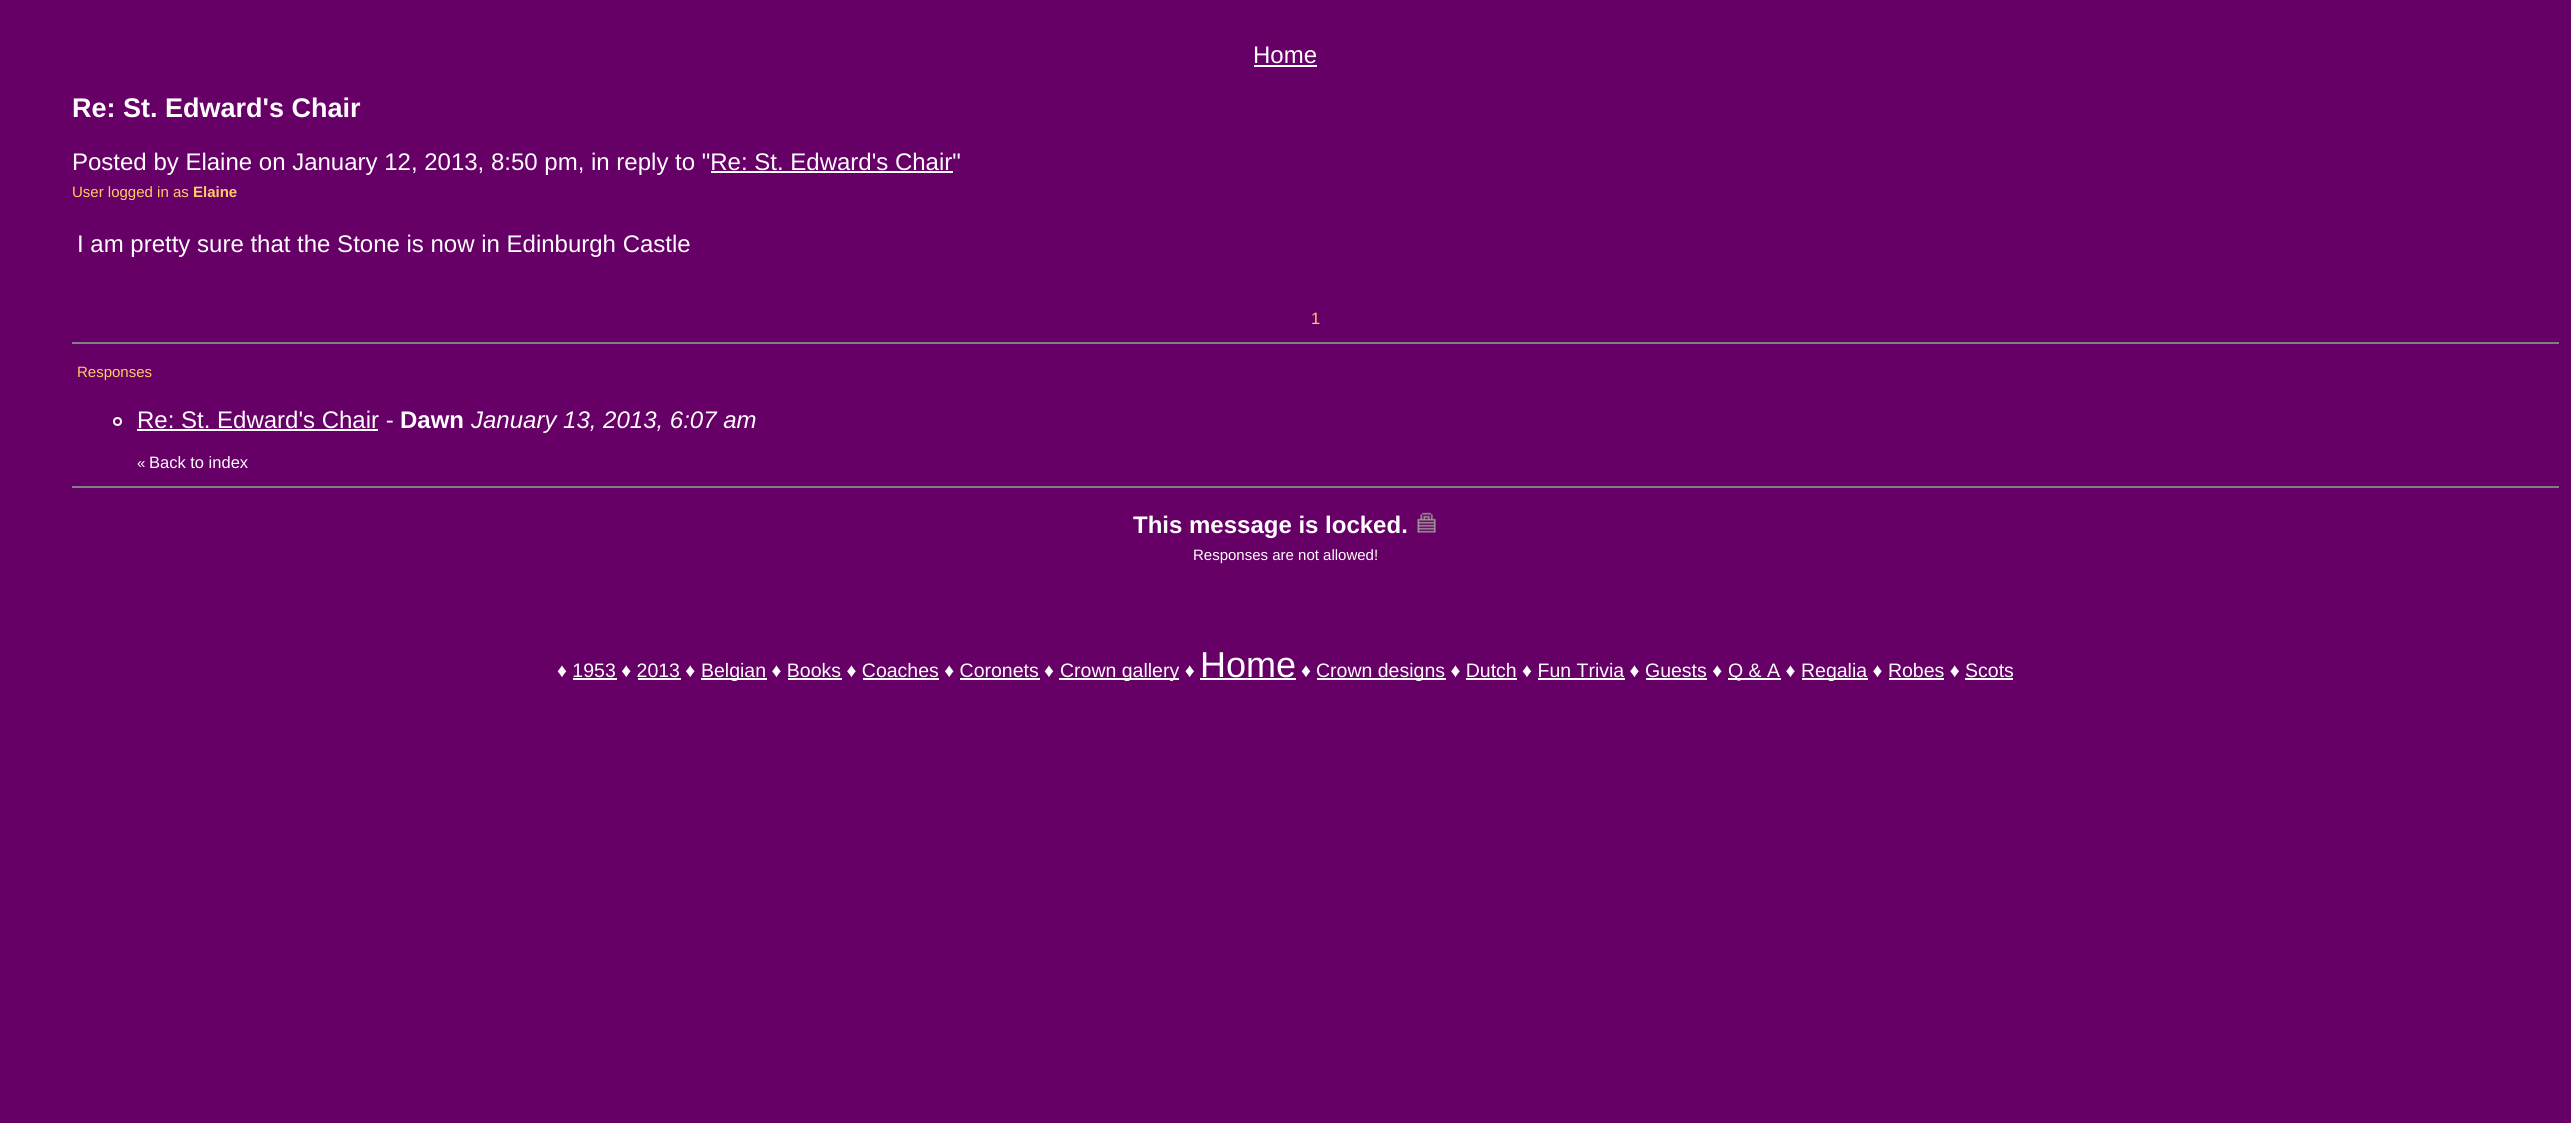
#include <cairo.h>
#include <math.h>
#include <stddef.h>


static void rgb(cairo_t *cr, int r, int g, int b)
{
	cairo_set_source_rgb(cr, r / 255.0, g / 255.0, b / 255.0);
}

static void face(cairo_t *cr, const char *family, double size, int italic, int bold)
{
	cairo_select_font_face(cr, family, italic ? CAIRO_FONT_SLANT_ITALIC : CAIRO_FONT_SLANT_NORMAL,
		bold ? CAIRO_FONT_WEIGHT_BOLD : CAIRO_FONT_WEIGHT_NORMAL);
	cairo_set_font_size(cr, size);
}

static void label(cairo_t *cr, double x, double y, const char *s)
{
	cairo_move_to(cr, x, y);
	cairo_show_text(cr, s);
}

static void rect(cairo_t *cr, double x, double y, double w, double h)
{
	cairo_rectangle(cr, x, y, w, h);
	cairo_fill(cr);
}

static void image(cairo_t *cr, const char *path, double x, double y, double w, double h)
{
	cairo_surface_t *image = cairo_image_surface_create_from_png(path);
	cairo_save(cr);
	cairo_set_source_surface(cr, image, x, y);
	cairo_rectangle(cr, x, y, w, h);
	cairo_fill(cr);
	cairo_restore(cr);
	cairo_surface_destroy(image);
}

static void draw(cairo_t *cr) {
	rgb(cr, 102, 0, 102);
	cairo_paint(cr);
	face(cr, "Liberation Sans", 24, 0, 0);
	rgb(cr, 255, 252, 255);
	label(cr, 1253, 63, "Home");
	rect(cr, 1254, 65, 63, 2);
	face(cr, "Liberation Sans", 27, 0, 1);
	label(cr, 72, 117, "Re: St. Edward's Chair");
	face(cr, "Liberation Sans", 24, 0, 0);
	label(cr, 72, 170, "Posted by Elaine on January 12, 2013, 8:50 pm, in reply to \"Re: St. Edward's Chair\"");
	rect(cr, 711, 171, 242, 2);
	face(cr, "Liberation Sans", 15, 0, 0);
	rgb(cr, 255, 204, 102);
	label(cr, 72, 197, "User logged in as");
	face(cr, "Liberation Sans", 15, 0, 1);
	label(cr, 193, 197, "Elaine");
	face(cr, "Liberation Sans", 24, 0, 0);
	rgb(cr, 255, 252, 255);
	label(cr, 77, 252, "I am pretty sure that the Stone is now in Edinburgh Castle");
	face(cr, "Liberation Sans", 16.5, 0, 0);
	rgb(cr, 255, 204, 102);
	label(cr, 1311, 324, "1");
	rgb(cr, 128, 128, 128);
	rect(cr, 72, 342, 2487, 2);
	face(cr, "Liberation Sans", 15, 0, 0);
	rgb(cr, 255, 204, 102);
	label(cr, 77, 377, "Responses");
	cairo_new_path(cr);
	cairo_arc(cr, 117.5, 421.5, 3.5, 0, 2 * M_PI);
	rgb(cr, 255, 252, 255);
	cairo_stroke(cr);
	face(cr, "Liberation Sans", 24, 0, 0);
	label(cr, 137, 428, "Re: St. Edward's Chair -");
	rect(cr, 137, 429, 241, 2);
	face(cr, "Liberation Sans", 24, 0, 1);
	label(cr, 400, 428, "Dawn");
	face(cr, "Liberation Sans", 24, 1, 0);
	label(cr, 471, 428, "January 13, 2013, 6:07 am");
	face(cr, "Liberation Sans", 15, 0, 0);
	label(cr, 137, 468, "«");
	face(cr, "Liberation Sans", 16.5, 0, 0);
	label(cr, 149, 468, "Back to index");
	rgb(cr, 128, 128, 128);
	rect(cr, 72, 486, 2487, 2);
	face(cr, "Liberation Sans", 24, 0, 1);
	rgb(cr, 255, 252, 255);
	label(cr, 1133, 533, "This message is locked.");
	image(cr, "image0.png", 1417, 512, 19, 21);
	face(cr, "Liberation Sans", 15, 0, 0);
	label(cr, 1193, 560, "Responses are not allowed!");
	face(cr, "Liberation Sans", 19.5, 0, 0);
	label(cr, 557, 677, "♦ 1953 ♦ 2013 ♦");
	rect(cr, 701, 678, 66, 2);
	label(cr, 701, 677, "Belgian ♦ Books ♦ Coaches ♦ Coronets ♦");
	rect(cr, 573, 678, 44, 2);
	rect(cr, 638, 678, 43, 2);
	rect(cr, 788, 678, 54, 2);
	rect(cr, 863, 678, 76, 2);
	rect(cr, 960, 678, 80, 2);
	rect(cr, 1059, 678, 120, 2);
	label(cr, 1060, 677, "Crown gallery ♦");
	rect(cr, 1200, 678, 96, 2);
	face(cr, "Liberation Sans", 36, 0, 0);
	label(cr, 1200, 677, "Home");
	face(cr, "Liberation Sans", 19.5, 0, 0);
	label(cr, 1301, 677, "♦");
	rect(cr, 1317, 678, 129, 2);
	label(cr, 1316, 677, "Crown designs ♦ Dutch ♦ Fun Trivia ♦ Guests ♦");
	rect(cr, 1466, 678, 51, 2);
	rect(cr, 1538, 678, 87, 2);
	rect(cr, 1646, 678, 61, 2);
	rect(cr, 1728, 678, 53, 2);
	label(cr, 1728, 677, "Q & A ♦");
	rect(cr, 1802, 678, 66, 2);
	label(cr, 1801, 677, "Regalia ♦ Robes ♦ Scots");
	rect(cr, 1889, 678, 55, 2);
	rect(cr, 1965, 678, 48, 2);
}

int main(void) {
	cairo_surface_t *surface = cairo_image_surface_create(CAIRO_FORMAT_RGB24, 2571, 1123);
	cairo_t *cr = cairo_create(surface);
	cairo_font_options_t *options = cairo_font_options_create();
	cairo_font_options_set_hint_metrics(options, CAIRO_HINT_METRICS_OFF);
	cairo_font_options_set_hint_style(options, CAIRO_HINT_STYLE_NONE);
	cairo_set_font_options(cr, options);
	cairo_set_miter_limit(cr, 4);
	draw(cr);
	cairo_surface_write_to_png(surface, "render.png");
	cairo_font_options_destroy(options);
	cairo_destroy(cr);
	cairo_surface_destroy(surface);
	return 0;
}
